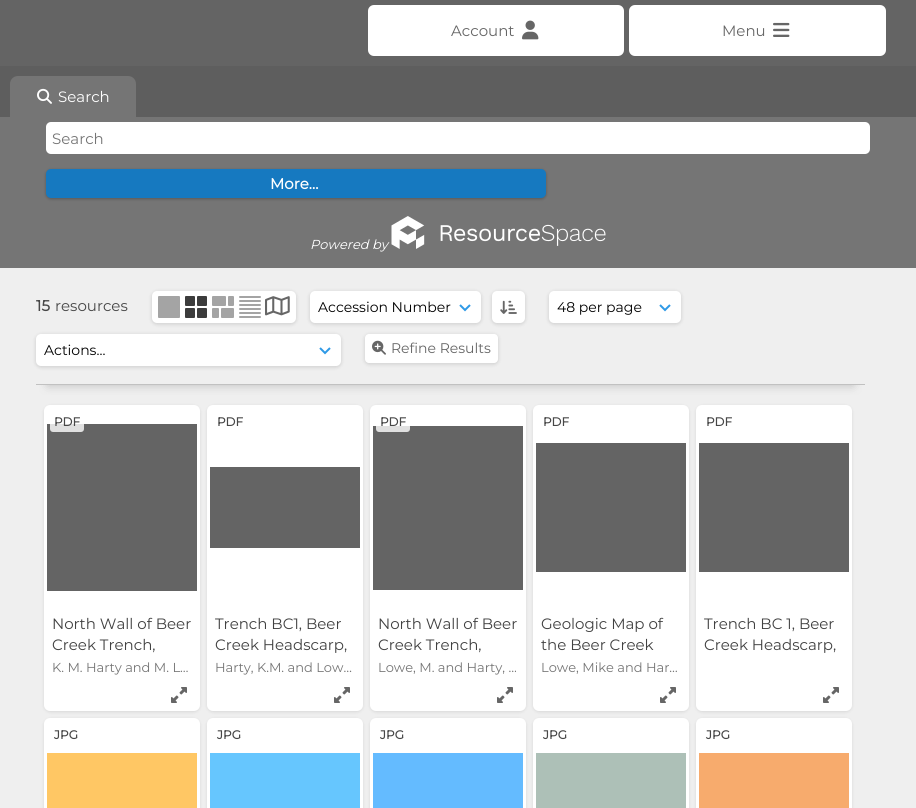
#include <cairo.h>
#include <math.h>
#include <stddef.h>


static void rgb(cairo_t *cr, int r, int g, int b)
{
	cairo_set_source_rgb(cr, r / 255.0, g / 255.0, b / 255.0);
}

static void face(cairo_t *cr, const char *family, double size, int italic, int bold)
{
	cairo_select_font_face(cr, family, italic ? CAIRO_FONT_SLANT_ITALIC : CAIRO_FONT_SLANT_NORMAL,
		bold ? CAIRO_FONT_WEIGHT_BOLD : CAIRO_FONT_WEIGHT_NORMAL);
	cairo_set_font_size(cr, size);
}

static void label(cairo_t *cr, double x, double y, const char *s)
{
	cairo_move_to(cr, x, y);
	cairo_show_text(cr, s);
}

static void rect(cairo_t *cr, double x, double y, double w, double h)
{
	cairo_rectangle(cr, x, y, w, h);
	cairo_fill(cr);
}

static void rrect(cairo_t *cr, double x, double y, double w, double h, double r)
{
	cairo_new_sub_path(cr);
	cairo_arc(cr, x + w - r, y + h - r, r, 0, M_PI / 2);
	cairo_arc(cr, x + r, y + h - r, r, M_PI / 2, M_PI);
	cairo_arc(cr, x + r, y + r, r, M_PI, 1.5 * M_PI);
	cairo_arc(cr, x + w - r, y + r, r, 1.5 * M_PI, 2 * M_PI);
	cairo_close_path(cr);
}

static void soft_shadow(cairo_t *cr, double x, double y, double w, double h, double r, double blur, double alpha)
{
	cairo_push_group_with_content(cr, CAIRO_CONTENT_ALPHA);
	cairo_set_operator(cr, CAIRO_OPERATOR_SOURCE);
	for (int i = 15; i >= -15 && fmin(w, h) + blur * i / 3 > 0; i -= 2) {
		double e = blur * i / 6;
		cairo_set_source_rgba(cr, 0, 0, 0, alpha * erfc((i - 1) / 8.5) / 2);
		rrect(cr, x - e, y - e, w + 2 * e, h + 2 * e, fmax(0, fmin(r + e + blur * .6, fmin(w, h) / 2 + e)));
		cairo_fill(cr);
	}
	cairo_pattern_t *soft = cairo_pop_group(cr);
	cairo_mask(cr, soft);
	cairo_pattern_destroy(soft);
}

static void image(cairo_t *cr, const char *path, double x, double y, double w, double h)
{
	cairo_surface_t *image = cairo_image_surface_create_from_png(path);
	cairo_save(cr);
	cairo_set_source_surface(cr, image, x, y);
	cairo_rectangle(cr, x, y, w, h);
	cairo_fill(cr);
	cairo_restore(cr);
	cairo_surface_destroy(image);
}

static void draw(cairo_t *cr) {
	rgb(cr, 239, 239, 239);
	cairo_paint(cr);
	rgb(cr, 100, 100, 100);
	rect(cr, 0, 0, 916, 66);
	rgb(cr, 255, 255, 255);
	rrect(cr, 368, 5, 256, 51, 6);
	cairo_fill(cr);
	face(cr, "Montserrat", 15, 0, 0);
	rgb(cr, 102, 102, 102);
	label(cr, 451, 36, "Account");
	image(cr, "image0.png", 522, 20, 17, 20);
	rgb(cr, 255, 255, 255);
	rrect(cr, 629, 5, 257, 51, 6);
	cairo_fill(cr);
	rgb(cr, 102, 102, 102);
	label(cr, 722, 36, "Menu");
	image(cr, "image1.png", 773, 22, 17, 15);
	rgb(cr, 117, 117, 117);
	rect(cr, 0, 117, 916, 151);
	rgb(cr, 94, 94, 94);
	rect(cr, 0, 66, 916, 51);
	rgb(cr, 117, 117, 117);
	cairo_new_path(cr);
	cairo_move_to(cr, 18, 76);
	cairo_line_to(cr, 128, 76);
	cairo_curve_to(cr, 132.5, 76, 136, 79.5, 136, 84);
	cairo_line_to(cr, 136, 117);
	cairo_line_to(cr, 10, 117);
	cairo_line_to(cr, 10, 84);
	cairo_curve_to(cr, 10, 79.5, 13.5, 76, 18, 76);
	cairo_close_path(cr);
	cairo_fill(cr);
	image(cr, "image2.png", 37, 88, 15, 16);
	rgb(cr, 255, 255, 255);
	label(cr, 58, 102, "Search");
	rrect(cr, 46, 122, 824, 32, 5);
	cairo_fill(cr);
	rgb(cr, 117, 117, 117);
	label(cr, 52, 144, "Search");
	rgb(cr, 0, 0, 0);
	soft_shadow(cr, 46, 170, 500, 29, 5, 1.5, 0.25);
	rgb(cr, 22, 121, 192);
	rrect(cr, 46, 169, 500, 29, 5);
	cairo_fill(cr);
	face(cr, "Montserrat", 15, 0, 1);
	rgb(cr, 255, 255, 255);
	label(cr, 270, 189, "More...");
	face(cr, "Montserrat", 13, 1, 0);
	label(cr, 310, 249, "Powered by");
	image(cr, "image3.png", 391, 216, 215, 33);
	cairo_save(cr);
	cairo_rectangle(cr, 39, 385, 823, 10);
	cairo_clip(cr);
	rgb(cr, 187, 187, 187);
	soft_shadow(cr, 48, 297, 805, 88, 0, 5, 1);
	cairo_restore(cr);
	rgb(cr, 193, 193, 193);
	rect(cr, 36, 384, 829, 1);
	face(cr, "Montserrat", 15, 0, 1);
	rgb(cr, 71, 71, 71);
	label(cr, 36, 311, "15");
	face(cr, "Montserrat", 15, 0, 0);
	label(cr, 55, 311, "resources");
	rgb(cr, 0, 0, 0);
	soft_shadow(cr, 151, 291, 146, 34, 6, 1.5, 0.1);
	rgb(cr, 255, 255, 255);
	rrect(cr, 152, 291, 144, 32, 5);
	cairo_fill(cr);
	rgb(cr, 164, 164, 164);
	rrect(cr, 158, 296, 22, 22, 1);
	cairo_fill(cr);
	rgb(cr, 60, 60, 60);
	rrect(cr, 197, 296, 10, 10, 1);
	cairo_fill(cr);
	rrect(cr, 185, 308, 10, 10, 1);
	cairo_fill(cr);
	rrect(cr, 197, 308, 10, 10, 1);
	cairo_fill(cr);
	rrect(cr, 185, 296, 10, 10, 1);
	cairo_fill(cr);
	rgb(cr, 164, 164, 164);
	rrect(cr, 212, 296, 14, 10, 1);
	cairo_fill(cr);
	rrect(cr, 228, 296, 6, 10, 1);
	cairo_fill(cr);
	rrect(cr, 221, 308, 13, 10, 1);
	cairo_fill(cr);
	rrect(cr, 212, 308, 7, 10, 1);
	cairo_fill(cr);
	image(cr, "image4.png", 239, 296, 22, 22);
	image(cr, "image5.png", 265, 296, 25, 20);
	rgb(cr, 0, 0, 0);
	soft_shadow(cr, 309, 291, 173, 34, 6, 1.5, 0.1);
	rgb(cr, 255, 255, 255);
	rrect(cr, 310, 291, 171, 32, 5);
	cairo_fill(cr);
	cairo_new_path(cr);
	cairo_move_to(cr, 470, 305);
	cairo_line_to(cr, 465, 310);
	cairo_line_to(cr, 460, 305);
	rgb(cr, 46, 153, 230);
	cairo_stroke(cr);
	face(cr, "Montserrat", 14, 0, 0);
	rgb(cr, 0, 0, 0);
	label(cr, 318, 312, "Accession Number");
	rgb(cr, 0, 0, 0);
	soft_shadow(cr, 491, 291, 35, 34, 6, 1.5, 0.1);
	rgb(cr, 255, 255, 255);
	rrect(cr, 492, 291, 33, 32, 5);
	cairo_fill(cr);
	image(cr, "image6.png", 500, 300, 17, 14);
	rgb(cr, 0, 0, 0);
	soft_shadow(cr, 548, 291, 134, 34, 6, 1.5, 0.1);
	rgb(cr, 255, 255, 255);
	rrect(cr, 549, 291, 132, 32, 5);
	cairo_fill(cr);
	cairo_new_path(cr);
	cairo_move_to(cr, 670, 305);
	cairo_line_to(cr, 665, 310);
	cairo_line_to(cr, 660, 305);
	rgb(cr, 46, 153, 230);
	cairo_stroke(cr);
	rgb(cr, 0, 0, 0);
	label(cr, 557, 312, "48 per page");
	rgb(cr, 0, 0, 0);
	soft_shadow(cr, 35, 334, 307, 34, 6, 1.5, 0.1);
	rgb(cr, 255, 255, 255);
	rrect(cr, 36, 334, 305, 32, 5);
	cairo_fill(cr);
	cairo_new_path(cr);
	cairo_move_to(cr, 330, 348);
	cairo_line_to(cr, 325, 353);
	cairo_line_to(cr, 320, 348);
	rgb(cr, 46, 153, 230);
	cairo_stroke(cr);
	rgb(cr, 0, 0, 0);
	label(cr, 44, 355, "Actions...");
	rgb(cr, 0, 0, 0);
	soft_shadow(cr, 364, 334, 135, 31, 5, 1.5, 0.1);
	rgb(cr, 255, 255, 255);
	rrect(cr, 365, 334, 133, 29, 4);
	cairo_fill(cr);
	image(cr, "image7.png", 372, 340, 14, 15);
	rgb(cr, 102, 102, 102);
	label(cr, 391, 353, "Refine Results");
	rgb(cr, 0, 0, 0);
	soft_shadow(cr, 44, 406, 156, 306, 6, 1.5, 0.1);
	rgb(cr, 255, 255, 255);
	rrect(cr, 44, 405, 156, 306, 6);
	cairo_fill(cr);
	rgb(cr, 100, 100, 100);
	rect(cr, 47, 424, 150, 167);
	cairo_set_source_rgba(cr, 1, 1, 1, 0.8);
	rrect(cr, 50, 411, 34, 21, 3);
	cairo_fill(cr);
	face(cr, "Montserrat", 12, 0, 1);
	rgb(cr, 71, 71, 71);
	label(cr, 54, 426, "PDF");
	face(cr, "Montserrat", 15, 0, 0);
	rgb(cr, 65, 65, 65);
	label(cr, 52, 629, "North Wall of Beer");
	label(cr, 52, 650, "Creek Trench,");
	face(cr, "Montserrat", 13, 0, 0);
	rgb(cr, 117, 117, 117);
	label(cr, 52, 672, "K. M. Harty and M. L…");
	image(cr, "image8.png", 171, 687, 16, 16);
	rgb(cr, 0, 0, 0);
	soft_shadow(cr, 207, 406, 156, 306, 6, 1.5, 0.1);
	rgb(cr, 255, 255, 255);
	rrect(cr, 207, 405, 156, 306, 6);
	cairo_fill(cr);
	face(cr, "Montserrat", 12, 0, 1);
	rgb(cr, 71, 71, 71);
	label(cr, 217, 426, "PDF");
	rgb(cr, 100, 100, 100);
	rect(cr, 210, 467, 150, 81);
	face(cr, "Montserrat", 15, 0, 0);
	rgb(cr, 65, 65, 65);
	label(cr, 215, 629, "Trench BC1, Beer");
	label(cr, 215, 650, "Creek Headscarp,");
	face(cr, "Montserrat", 13, 0, 0);
	rgb(cr, 117, 117, 117);
	label(cr, 215, 672, "Harty, K.M. and Low…");
	image(cr, "image8.png", 334, 687, 16, 16);
	rgb(cr, 0, 0, 0);
	soft_shadow(cr, 370, 406, 156, 306, 6, 1.5, 0.1);
	rgb(cr, 255, 255, 255);
	rrect(cr, 370, 405, 156, 306, 6);
	cairo_fill(cr);
	rgb(cr, 100, 100, 100);
	rect(cr, 373, 426, 150, 164);
	cairo_set_source_rgba(cr, 1, 1, 1, 0.8);
	rrect(cr, 376, 411, 34, 21, 3);
	cairo_fill(cr);
	face(cr, "Montserrat", 12, 0, 1);
	rgb(cr, 71, 71, 71);
	label(cr, 380, 426, "PDF");
	face(cr, "Montserrat", 15, 0, 0);
	rgb(cr, 65, 65, 65);
	label(cr, 378, 629, "North Wall of Beer");
	label(cr, 378, 650, "Creek Trench,");
	face(cr, "Montserrat", 13, 0, 0);
	rgb(cr, 117, 117, 117);
	label(cr, 378, 672, "Lowe, M. and Harty, …");
	image(cr, "image8.png", 497, 687, 16, 16);
	rgb(cr, 0, 0, 0);
	soft_shadow(cr, 533, 406, 156, 306, 6, 1.5, 0.1);
	rgb(cr, 255, 255, 255);
	rrect(cr, 533, 405, 156, 306, 6);
	cairo_fill(cr);
	face(cr, "Montserrat", 12, 0, 1);
	rgb(cr, 71, 71, 71);
	label(cr, 543, 426, "PDF");
	rgb(cr, 100, 100, 100);
	rect(cr, 536, 443, 150, 129);
	face(cr, "Montserrat", 15, 0, 0);
	rgb(cr, 65, 65, 65);
	label(cr, 541, 629, "Geologic Map of");
	label(cr, 541, 650, "the Beer Creek");
	face(cr, "Montserrat", 13, 0, 0);
	rgb(cr, 117, 117, 117);
	label(cr, 541, 672, "Lowe, Mike and Har…");
	image(cr, "image8.png", 660, 687, 16, 16);
	rgb(cr, 0, 0, 0);
	soft_shadow(cr, 696, 406, 156, 306, 6, 1.5, 0.1);
	rgb(cr, 255, 255, 255);
	rrect(cr, 696, 405, 156, 306, 6);
	cairo_fill(cr);
	face(cr, "Montserrat", 12, 0, 1);
	rgb(cr, 71, 71, 71);
	label(cr, 706, 426, "PDF");
	rgb(cr, 100, 100, 100);
	rect(cr, 699, 443, 150, 129);
	face(cr, "Montserrat", 15, 0, 0);
	rgb(cr, 65, 65, 65);
	label(cr, 704, 629, "Trench BC 1, Beer");
	label(cr, 704, 650, "Creek Headscarp,");
	image(cr, "image8.png", 823, 687, 16, 16);
	rgb(cr, 0, 0, 0);
	soft_shadow(cr, 44, 719, 156, 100, 6, 1.5, 0.1);
	rgb(cr, 255, 255, 255);
	rrect(cr, 44, 718, 156, 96, 6);
	cairo_fill(cr);
	face(cr, "Montserrat", 12, 0, 1);
	rgb(cr, 71, 71, 71);
	label(cr, 54, 739, "JPG");
	rgb(cr, 255, 199, 100);
	rect(cr, 47, 753, 150, 55);
	rgb(cr, 0, 0, 0);
	soft_shadow(cr, 207, 719, 156, 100, 6, 1.5, 0.1);
	rgb(cr, 255, 255, 255);
	rrect(cr, 207, 718, 156, 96, 6);
	cairo_fill(cr);
	rgb(cr, 71, 71, 71);
	label(cr, 217, 739, "JPG");
	rgb(cr, 102, 198, 254);
	rect(cr, 210, 753, 150, 55);
	rgb(cr, 0, 0, 0);
	soft_shadow(cr, 370, 719, 156, 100, 6, 1.5, 0.1);
	rgb(cr, 255, 255, 255);
	rrect(cr, 370, 718, 156, 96, 6);
	cairo_fill(cr);
	rgb(cr, 71, 71, 71);
	label(cr, 380, 739, "JPG");
	rgb(cr, 100, 187, 255);
	rect(cr, 373, 753, 150, 55);
	rgb(cr, 0, 0, 0);
	soft_shadow(cr, 533, 719, 156, 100, 6, 1.5, 0.1);
	rgb(cr, 255, 255, 255);
	rrect(cr, 533, 718, 156, 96, 6);
	cairo_fill(cr);
	rgb(cr, 71, 71, 71);
	label(cr, 543, 739, "JPG");
	rgb(cr, 173, 192, 183);
	rect(cr, 536, 753, 150, 55);
	rgb(cr, 0, 0, 0);
	soft_shadow(cr, 696, 719, 156, 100, 6, 1.5, 0.1);
	rgb(cr, 255, 255, 255);
	rrect(cr, 696, 718, 156, 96, 6);
	cairo_fill(cr);
	rgb(cr, 71, 71, 71);
	label(cr, 706, 739, "JPG");
	rgb(cr, 247, 171, 109);
	rect(cr, 699, 753, 150, 55);
}

int main(void) {
	cairo_surface_t *surface = cairo_image_surface_create(CAIRO_FORMAT_RGB24, 916, 808);
	cairo_t *cr = cairo_create(surface);
	cairo_font_options_t *options = cairo_font_options_create();
	cairo_font_options_set_hint_metrics(options, CAIRO_HINT_METRICS_OFF);
	cairo_font_options_set_hint_style(options, CAIRO_HINT_STYLE_NONE);
	cairo_set_font_options(cr, options);
	cairo_set_miter_limit(cr, 4);
	draw(cr);
	cairo_surface_write_to_png(surface, "render.png");
	cairo_font_options_destroy(options);
	cairo_destroy(cr);
	cairo_surface_destroy(surface);
	return 0;
}
